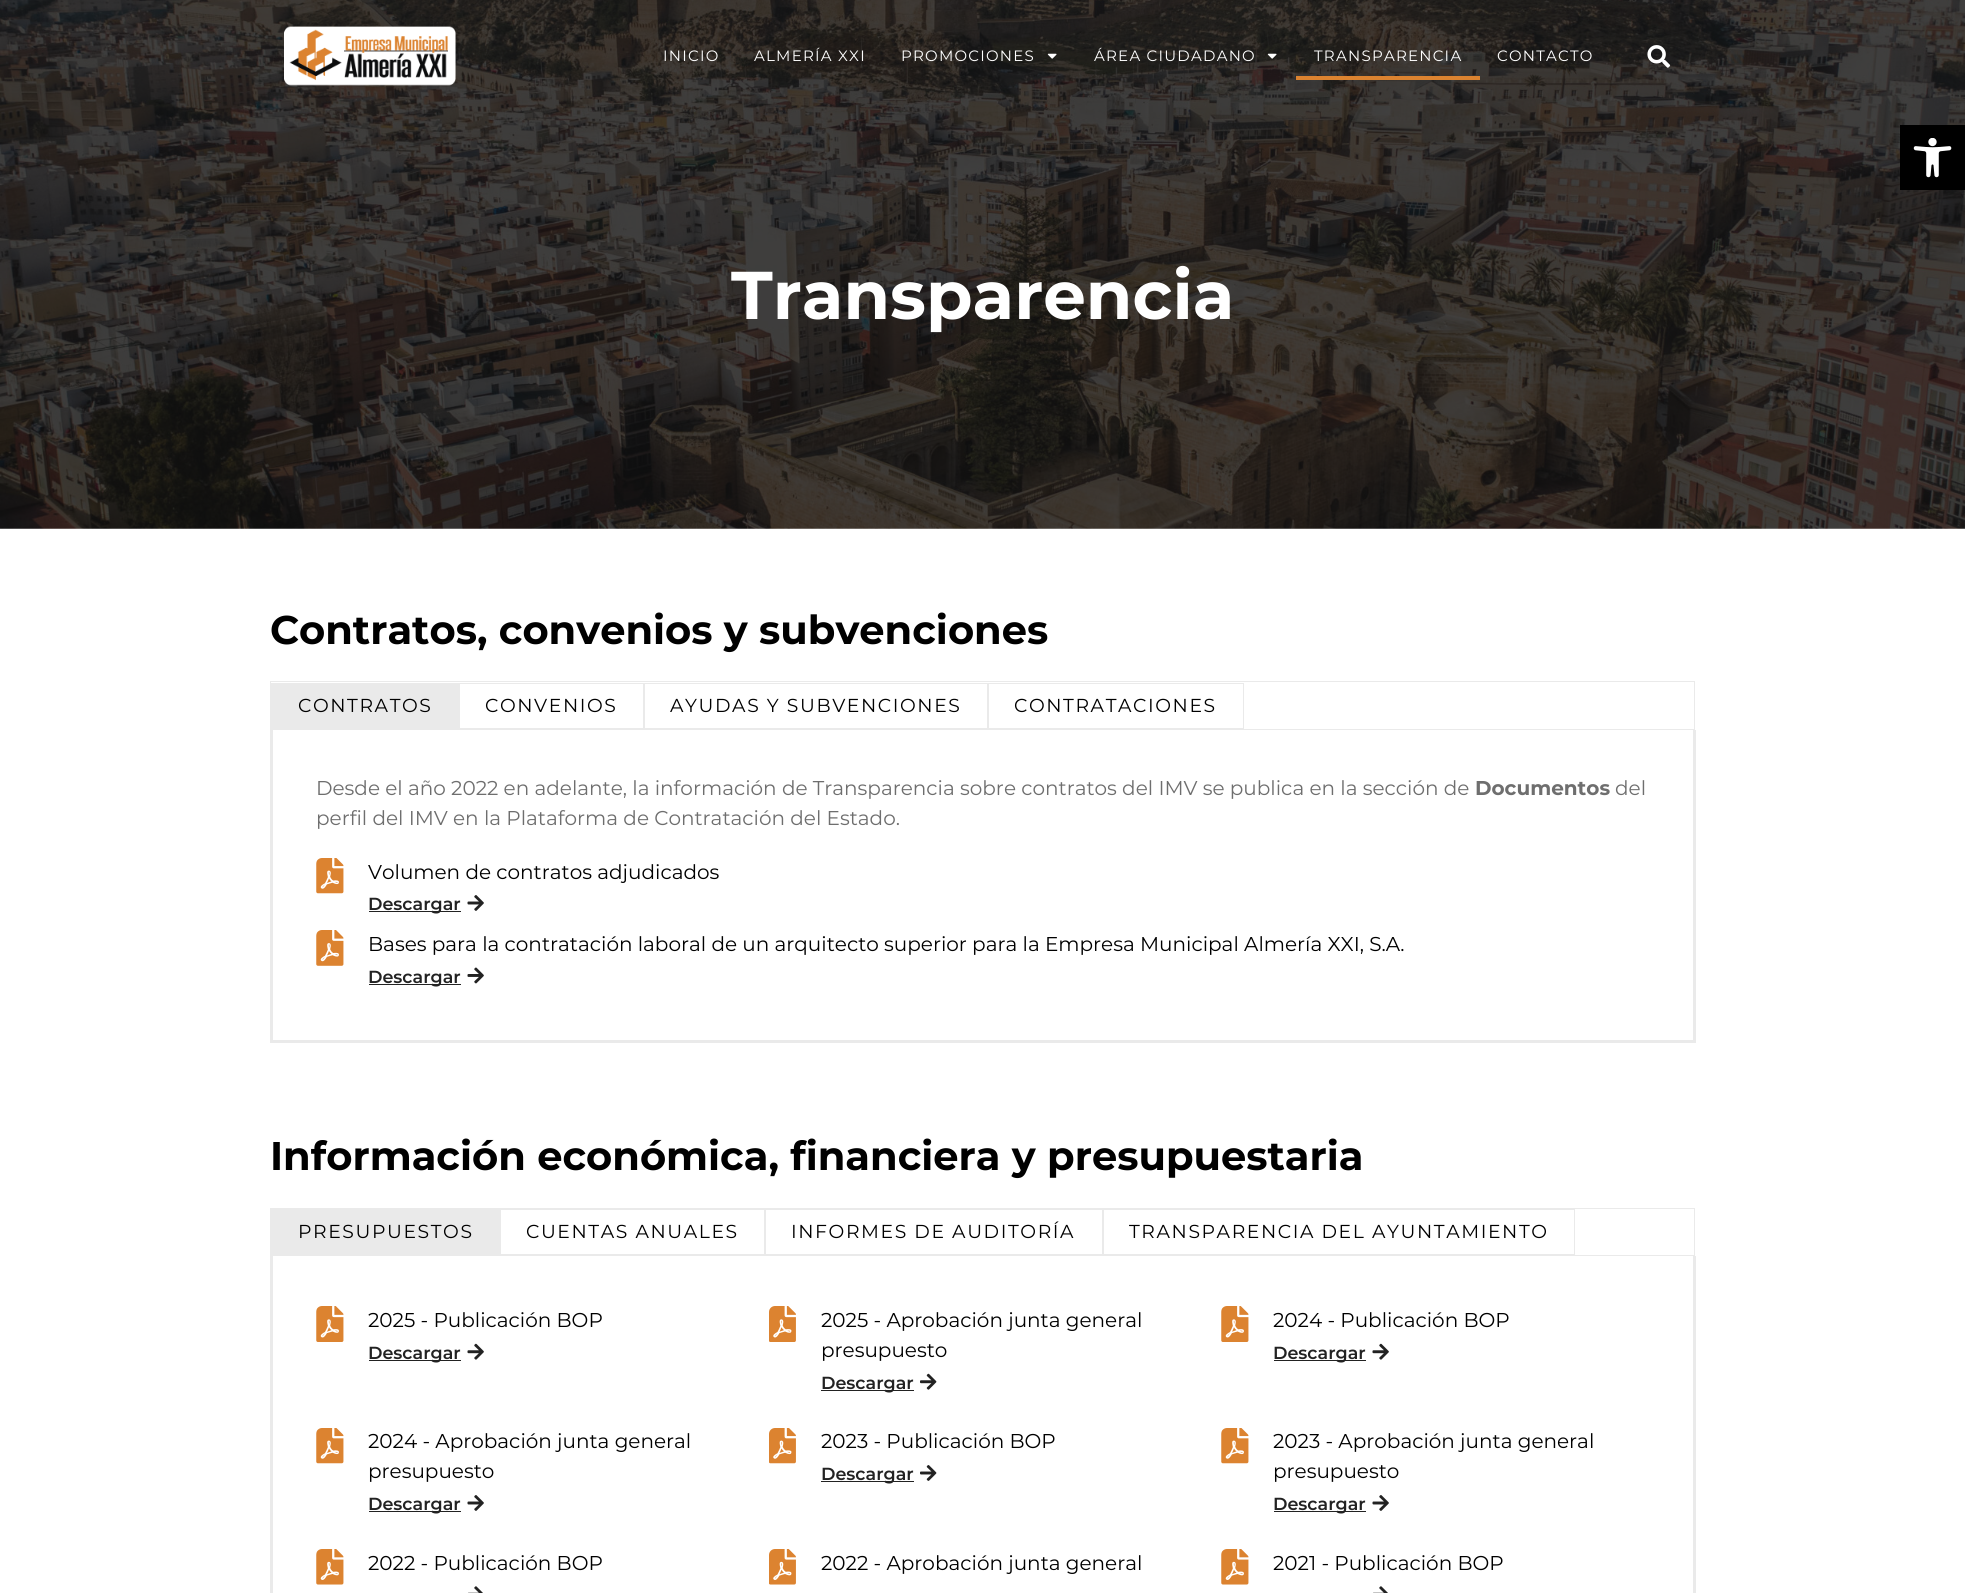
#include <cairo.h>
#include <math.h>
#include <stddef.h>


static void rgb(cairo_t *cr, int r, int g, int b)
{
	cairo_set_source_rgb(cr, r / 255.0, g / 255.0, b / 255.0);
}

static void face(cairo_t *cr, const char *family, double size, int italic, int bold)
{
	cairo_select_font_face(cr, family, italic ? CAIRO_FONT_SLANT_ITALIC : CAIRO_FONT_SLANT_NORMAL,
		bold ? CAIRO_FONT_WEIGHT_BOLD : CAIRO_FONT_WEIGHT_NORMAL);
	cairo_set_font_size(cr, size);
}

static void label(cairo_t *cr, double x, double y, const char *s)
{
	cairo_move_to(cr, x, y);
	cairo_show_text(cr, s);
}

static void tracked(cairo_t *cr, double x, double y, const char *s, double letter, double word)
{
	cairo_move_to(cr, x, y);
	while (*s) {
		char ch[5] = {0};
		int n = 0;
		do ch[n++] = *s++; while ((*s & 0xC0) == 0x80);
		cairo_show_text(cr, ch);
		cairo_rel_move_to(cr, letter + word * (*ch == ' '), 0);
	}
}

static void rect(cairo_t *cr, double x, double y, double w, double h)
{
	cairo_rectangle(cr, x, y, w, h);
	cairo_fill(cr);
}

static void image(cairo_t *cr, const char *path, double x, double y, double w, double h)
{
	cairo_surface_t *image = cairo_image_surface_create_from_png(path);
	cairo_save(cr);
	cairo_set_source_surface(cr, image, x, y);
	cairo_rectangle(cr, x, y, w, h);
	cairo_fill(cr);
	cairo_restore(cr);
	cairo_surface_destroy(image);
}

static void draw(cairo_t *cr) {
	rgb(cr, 255, 255, 255);
	cairo_paint(cr);
	image(cr, "image5.png", 0, 0, 1965, 529);
	image(cr, "image0.png", 284, 26, 172, 60);
	face(cr, "Montserrat", 15, 0, 0);
	rgb(cr, 255, 255, 255);
	tracked(cr, 663, 61, "INICIO", 1.25, 0);
	tracked(cr, 754, 61, "ALMERÍA XXI", 1.25, 0);
	tracked(cr, 901, 61, "PROMOCIONES", 1.25, 0);
	image(cr, "image1.png", 1047, 53, 10, 6);
	tracked(cr, 1094, 61, "ÁREA CIUDADANO", 1.25, 0);
	image(cr, "image2.png", 1267, 53, 10, 6);
	tracked(cr, 1314, 61, "TRANSPARENCIA", 1.25, 0);
	rgb(cr, 220, 131, 48);
	rect(cr, 1296, 76, 184, 4);
	rgb(cr, 255, 255, 255);
	tracked(cr, 1497, 61, "CONTACTO", 1.25, 0);
	image(cr, "image3.png", 1647, 45, 24, 23);
	rgb(cr, 0, 0, 0);
	rect(cr, 1900, 125, 65, 65);
	image(cr, "image4.png", 1913, 138, 39, 40);
	face(cr, "Montserrat", 67.5, 0, 1);
	rgb(cr, 255, 255, 255);
	label(cr, 731, 319, "Transparencia");
	face(cr, "Montserrat", 40, 0, 1);
	rgb(cr, 0, 0, 0);
	label(cr, 270, 644, "Contratos, convenios y subvenciones");
	cairo_rectangle(cr, 270.5, 681.5, 1424, 48);
	rgb(cr, 234, 234, 234);
	cairo_set_line_width(cr, 1);
	cairo_stroke(cr);
	rect(cr, 271, 683, 188, 46);
	face(cr, "Montserrat", 18.75, 0, 0);
	rgb(cr, 0, 0, 0);
	tracked(cr, 298, 712, "CONTRATOS", 1.6, 0);
	cairo_rectangle(cr, 459.5, 683.5, 184, 45);
	rgb(cr, 234, 234, 234);
	cairo_stroke(cr);
	rgb(cr, 0, 0, 0);
	tracked(cr, 485, 712, "CONVENIOS", 1.6, 0);
	cairo_rectangle(cr, 644.5, 683.5, 343, 45);
	rgb(cr, 234, 234, 234);
	cairo_stroke(cr);
	rgb(cr, 0, 0, 0);
	tracked(cr, 670, 712, "AYUDAS Y SUBVENCIONES", 1.6, 0);
	cairo_rectangle(cr, 988.5, 683.5, 255, 45);
	rgb(cr, 234, 234, 234);
	cairo_stroke(cr);
	rgb(cr, 0, 0, 0);
	tracked(cr, 1014, 712, "CONTRATACIONES", 1.6, 0);
	rgb(cr, 234, 234, 234);
	rect(cr, 1693, 730, 3, 313);
	rect(cr, 270, 1040, 1425, 3);
	rect(cr, 270, 730, 3, 313);
	face(cr, "Montserrat", 20, 0, 0);
	rgb(cr, 110, 110, 110);
	label(cr, 316, 795, "Desde el año 2022 en adelante, la información de Transparencia sobre contratos del IMV se publica en la sección de");
	face(cr, "Montserrat", 20, 0, 1);
	label(cr, 1475, 795, "Documentos");
	face(cr, "Montserrat", 20, 0, 0);
	label(cr, 1615, 795, "del");
	label(cr, 316, 825, "perfil del IMV en la Plataforma de Contratación del Estado.");
	image(cr, "image6.png", 316, 858, 28, 36);
	rgb(cr, 0, 0, 0);
	label(cr, 368, 879, "Volumen de contratos adjudicados");
	rgb(cr, 34, 34, 34);
	rect(cr, 369, 911, 92, 1);
	face(cr, "Montserrat SemiBold", 17.5, 0, 0);
	label(cr, 368, 910, "Descargar");
	image(cr, "image7.png", 467, 895, 17, 16);
	image(cr, "image8.png", 316, 930, 28, 36);
	face(cr, "Montserrat", 20, 0, 0);
	rgb(cr, 0, 0, 0);
	label(cr, 368, 951, "Bases para la contratación laboral de un arquitecto superior para la Empresa Municipal Almería XXI, S.A.");
	rgb(cr, 34, 34, 34);
	rect(cr, 369, 984, 92, 1);
	face(cr, "Montserrat SemiBold", 17.5, 0, 0);
	label(cr, 368, 983, "Descargar");
	image(cr, "image9.png", 467, 967, 17, 17);
	face(cr, "Montserrat", 40, 0, 1);
	rgb(cr, 0, 0, 0);
	label(cr, 270, 1170, "Información económica, financiera y presupuestaria");
	cairo_rectangle(cr, 270.5, 1208.5, 1424, 47);
	rgb(cr, 234, 234, 234);
	cairo_stroke(cr);
	rect(cr, 271, 1209, 229, 46);
	face(cr, "Montserrat", 18.75, 0, 0);
	rgb(cr, 0, 0, 0);
	tracked(cr, 298, 1238, "PRESUPUESTOS", 1.6, 0);
	cairo_rectangle(cr, 500.5, 1209.5, 264, 45);
	rgb(cr, 234, 234, 234);
	cairo_stroke(cr);
	rgb(cr, 0, 0, 0);
	tracked(cr, 526, 1238, "CUENTAS ANUALES", 1.6, 0);
	cairo_rectangle(cr, 765.5, 1209.5, 337, 45);
	rgb(cr, 234, 234, 234);
	cairo_stroke(cr);
	rgb(cr, 0, 0, 0);
	tracked(cr, 791, 1238, "INFORMES DE AUDITORÍA", 1.6, 0);
	cairo_rectangle(cr, 1103.5, 1209.5, 471, 45);
	rgb(cr, 234, 234, 234);
	cairo_stroke(cr);
	rgb(cr, 0, 0, 0);
	tracked(cr, 1129, 1238, "TRANSPARENCIA DEL AYUNTAMIENTO", 1.6, 0);
	rgb(cr, 234, 234, 234);
	rect(cr, 1693, 1256, 3, 337);
	rect(cr, 270, 1256, 3, 337);
	image(cr, "image10.png", 316, 1306, 28, 36);
	face(cr, "Montserrat", 20, 0, 0);
	rgb(cr, 0, 0, 0);
	label(cr, 368, 1327, "2025 - Publicación BOP");
	rgb(cr, 34, 34, 34);
	rect(cr, 369, 1360, 92, 1);
	face(cr, "Montserrat SemiBold", 17.5, 0, 0);
	label(cr, 368, 1359, "Descargar");
	image(cr, "image11.png", 467, 1343, 17, 17);
	image(cr, "image12.png", 769, 1306, 27, 36);
	face(cr, "Montserrat", 20, 0, 0);
	rgb(cr, 0, 0, 0);
	label(cr, 821, 1327, "2025 - Aprobación junta general");
	label(cr, 821, 1357, "presupuesto");
	rgb(cr, 34, 34, 34);
	rect(cr, 821, 1390, 93, 1);
	face(cr, "Montserrat SemiBold", 17.5, 0, 0);
	label(cr, 821, 1389, "Descargar");
	image(cr, "image13.png", 920, 1373, 17, 17);
	image(cr, "image10.png", 1221, 1306, 28, 36);
	face(cr, "Montserrat", 20, 0, 0);
	rgb(cr, 0, 0, 0);
	label(cr, 1273, 1327, "2024 - Publicación BOP");
	rgb(cr, 34, 34, 34);
	rect(cr, 1274, 1360, 92, 1);
	face(cr, "Montserrat SemiBold", 17.5, 0, 0);
	label(cr, 1273, 1359, "Descargar");
	image(cr, "image11.png", 1372, 1343, 17, 17);
	image(cr, "image6.png", 316, 1428, 28, 36);
	face(cr, "Montserrat", 20, 0, 0);
	rgb(cr, 0, 0, 0);
	label(cr, 368, 1448, "2024 - Aprobación junta general");
	label(cr, 368, 1478, "presupuesto");
	rgb(cr, 34, 34, 34);
	rect(cr, 369, 1511, 92, 1);
	face(cr, "Montserrat SemiBold", 17.5, 0, 0);
	label(cr, 368, 1510, "Descargar");
	image(cr, "image7.png", 467, 1495, 17, 16);
	image(cr, "image14.png", 769, 1428, 27, 36);
	face(cr, "Montserrat", 20, 0, 0);
	rgb(cr, 0, 0, 0);
	label(cr, 821, 1448, "2023 - Publicación BOP");
	rgb(cr, 34, 34, 34);
	rect(cr, 821, 1481, 93, 1);
	face(cr, "Montserrat SemiBold", 17.5, 0, 0);
	label(cr, 821, 1480, "Descargar");
	image(cr, "image15.png", 920, 1465, 17, 16);
	image(cr, "image6.png", 1221, 1428, 28, 36);
	face(cr, "Montserrat", 20, 0, 0);
	rgb(cr, 0, 0, 0);
	label(cr, 1273, 1448, "2023 - Aprobación junta general");
	label(cr, 1273, 1478, "presupuesto");
	rgb(cr, 34, 34, 34);
	rect(cr, 1274, 1511, 92, 1);
	face(cr, "Montserrat SemiBold", 17.5, 0, 0);
	label(cr, 1273, 1510, "Descargar");
	image(cr, "image7.png", 1372, 1495, 17, 16);
	image(cr, "image16.png", 316, 1549, 28, 36);
	face(cr, "Montserrat", 20, 0, 0);
	rgb(cr, 0, 0, 0);
	label(cr, 368, 1570, "2022 - Publicación BOP");
	image(cr, "image17.png", 468, 1586, 15, 7);
	image(cr, "image18.png", 769, 1549, 27, 36);
	label(cr, 821, 1570, "2022 - Aprobación junta general");
	image(cr, "image16.png", 1221, 1549, 28, 36);
	label(cr, 1273, 1570, "2021 - Publicación BOP");
	image(cr, "image17.png", 1373, 1586, 15, 7);
}

int main(void) {
	cairo_surface_t *surface = cairo_image_surface_create(CAIRO_FORMAT_RGB24, 1965, 1593);
	cairo_t *cr = cairo_create(surface);
	cairo_font_options_t *options = cairo_font_options_create();
	cairo_font_options_set_hint_metrics(options, CAIRO_HINT_METRICS_OFF);
	cairo_font_options_set_hint_style(options, CAIRO_HINT_STYLE_NONE);
	cairo_set_font_options(cr, options);
	cairo_set_miter_limit(cr, 4);
	draw(cr);
	cairo_surface_write_to_png(surface, "render.png");
	cairo_font_options_destroy(options);
	cairo_destroy(cr);
	cairo_surface_destroy(surface);
	return 0;
}
